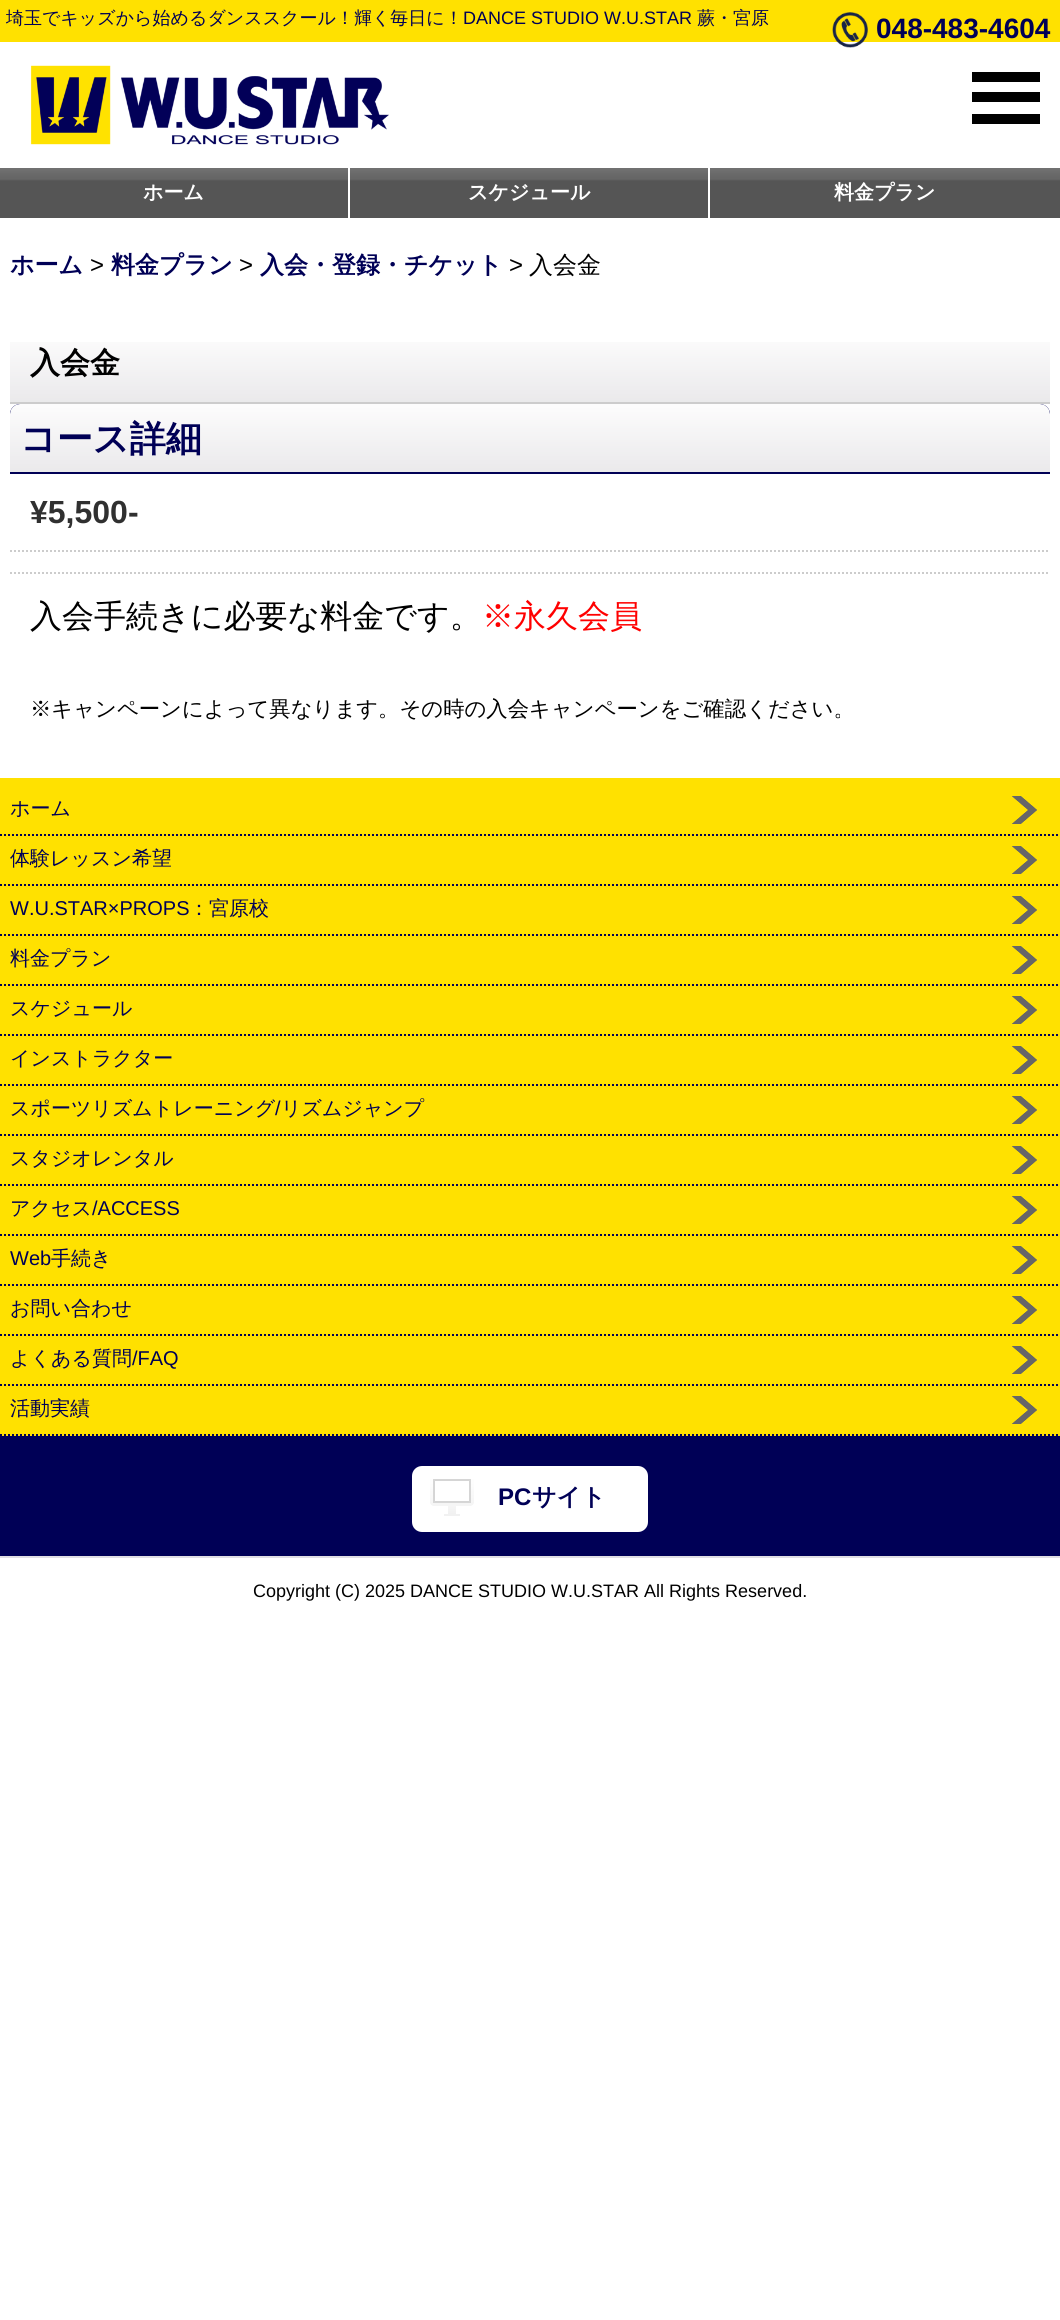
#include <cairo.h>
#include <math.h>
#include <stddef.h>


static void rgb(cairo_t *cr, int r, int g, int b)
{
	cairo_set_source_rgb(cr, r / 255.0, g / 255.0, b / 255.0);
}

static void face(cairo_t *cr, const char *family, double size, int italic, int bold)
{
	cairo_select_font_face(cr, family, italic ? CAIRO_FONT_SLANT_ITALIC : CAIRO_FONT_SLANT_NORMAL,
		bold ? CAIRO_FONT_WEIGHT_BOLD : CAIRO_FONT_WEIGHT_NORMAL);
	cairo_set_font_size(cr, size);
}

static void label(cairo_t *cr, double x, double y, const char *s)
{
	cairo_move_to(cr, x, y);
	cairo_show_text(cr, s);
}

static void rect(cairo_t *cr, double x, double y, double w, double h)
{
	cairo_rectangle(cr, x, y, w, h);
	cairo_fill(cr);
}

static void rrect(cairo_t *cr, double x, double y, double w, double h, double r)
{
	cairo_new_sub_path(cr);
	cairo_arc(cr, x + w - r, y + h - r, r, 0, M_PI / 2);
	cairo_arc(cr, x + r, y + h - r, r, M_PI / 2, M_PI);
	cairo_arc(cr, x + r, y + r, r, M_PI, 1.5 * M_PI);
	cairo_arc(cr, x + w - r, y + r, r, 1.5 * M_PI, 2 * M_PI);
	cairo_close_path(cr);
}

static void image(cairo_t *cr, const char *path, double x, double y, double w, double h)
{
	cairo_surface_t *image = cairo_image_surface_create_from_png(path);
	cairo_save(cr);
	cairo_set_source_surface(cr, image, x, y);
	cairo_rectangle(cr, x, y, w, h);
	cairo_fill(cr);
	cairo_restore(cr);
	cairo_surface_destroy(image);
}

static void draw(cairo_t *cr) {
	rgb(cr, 255, 255, 255);
	cairo_paint(cr);
	rgb(cr, 255, 225, 0);
	rect(cr, 0, 0, 1060, 42);
	face(cr, "WenQuanYi Zen Hei Medium", 18, 0, 0);
	rgb(cr, 0, 0, 86);
	label(cr, 6, 24, "埼玉でキッズから始めるダンススクール！輝く毎日に！");
	face(cr, "Liberation Sans", 18, 0, 0);
	label(cr, 463, 24, "DANCE STUDIO W.U.STAR");
	face(cr, "WenQuanYi Zen Hei Medium", 18, 0, 0);
	label(cr, 697, 24, "蕨・宮原");
	image(cr, "image0.png", 832, 12, 36, 36);
	face(cr, "Liberation Sans", 28, 0, 1);
	label(cr, 876, 38, "048-483-4604");
	image(cr, "image1.png", 30, 65, 359, 80);
	image(cr, "image2.png", 972, 72, 68, 52);
	image(cr, "image3.png", 0, 168, 348, 50);
	face(cr, "WenQuanYi Zen Hei", 20, 0, 1);
	rgb(cr, 255, 255, 255);
	label(cr, 143, 199, "ホーム");
	image(cr, "image4.png", 350, 168, 358, 50);
	label(cr, 468, 199, "スケジュール");
	image(cr, "image5.png", 710, 168, 350, 50);
	label(cr, 834, 199, "料金プラン");
	face(cr, "WenQuanYi Zen Hei", 24, 0, 1);
	rgb(cr, 0, 0, 86);
	label(cr, 10, 273, "ホーム");
	face(cr, "Liberation Sans", 24, 0, 0);
	rgb(cr, 0, 0, 0);
	label(cr, 90, 273, ">");
	face(cr, "WenQuanYi Zen Hei", 24, 0, 1);
	rgb(cr, 0, 0, 86);
	label(cr, 111, 273, "料金プラン");
	face(cr, "Liberation Sans", 24, 0, 0);
	rgb(cr, 0, 0, 0);
	label(cr, 239, 273, ">");
	face(cr, "WenQuanYi Zen Hei", 24, 0, 1);
	rgb(cr, 0, 0, 86);
	label(cr, 260, 273, "入会・登録・チケット");
	face(cr, "Liberation Sans", 24, 0, 0);
	rgb(cr, 0, 0, 0);
	label(cr, 509, 273, ">");
	face(cr, "WenQuanYi Zen Hei Medium", 24, 0, 0);
	label(cr, 529, 273, "入会金");
	image(cr, "image6.png", 10, 342, 1040, 60);
	rgb(cr, 204, 204, 204);
	rect(cr, 10, 402, 1040, 2);
	face(cr, "WenQuanYi Zen Hei", 30, 0, 1);
	rgb(cr, 0, 0, 0);
	label(cr, 30, 373, "入会金");
	rgb(cr, 0, 0, 86);
	cairo_new_path(cr);
	cairo_move_to(cr, 20, 404);
	cairo_line_to(cr, 1040, 404);
	cairo_curve_to(cr, 1045.5, 404, 1050, 408.5, 1050, 414);
	cairo_line_to(cr, 1050, 474);
	cairo_line_to(cr, 10, 474);
	cairo_line_to(cr, 10, 414);
	cairo_curve_to(cr, 10, 408.5, 14.5, 404, 20, 404);
	cairo_close_path(cr);
	cairo_fill(cr);
	image(cr, "image7.png", 10, 404, 1040, 68);
	face(cr, "WenQuanYi Zen Hei", 36, 0, 1);
	label(cr, 20, 451, "コース詳細");
	face(cr, "Liberation Sans", 32, 0, 1);
	rgb(cr, 48, 48, 48);
	label(cr, 30, 523, "¥5,500-");
	cairo_new_path(cr);
	cairo_move_to(cr, 10, 551);
	cairo_line_to(cr, 1050, 551);
	rgb(cr, 204, 204, 204);
	cairo_set_dash(cr, (double[]){2, 2}, 2, 0);
	cairo_stroke(cr);
	cairo_new_path(cr);
	cairo_move_to(cr, 10, 573);
	cairo_line_to(cr, 1050, 573);
	cairo_stroke(cr);
	face(cr, "WenQuanYi Zen Hei Medium", 32, 0, 0);
	rgb(cr, 0, 0, 0);
	label(cr, 30, 627, "入会手続きに必要な料金です。");
	rgb(cr, 255, 0, 0);
	label(cr, 482, 627, "※永久会員");
	face(cr, "WenQuanYi Zen Hei Medium", 21.35, 0, 0);
	rgb(cr, 0, 0, 0);
	label(cr, 30, 716, "※キャンペーンによって異なります。その時の入会キャンペーンをご確認ください。");
	rgb(cr, 255, 225, 0);
	rect(cr, 0, 778, 1060, 658);
	cairo_new_path(cr);
	cairo_move_to(cr, 0, 835);
	cairo_line_to(cr, 1060, 835);
	rgb(cr, 0, 0, 86);
	cairo_stroke(cr);
	image(cr, "image8.png", 1012, 796, 25, 28);
	face(cr, "WenQuanYi Zen Hei Medium", 20, 0, 0);
	label(cr, 10, 815, "ホーム");
	cairo_new_path(cr);
	cairo_move_to(cr, 0, 885);
	cairo_line_to(cr, 1060, 885);
	cairo_stroke(cr);
	image(cr, "image8.png", 1012, 846, 25, 28);
	label(cr, 10, 865, "体験レッスン希望");
	cairo_new_path(cr);
	cairo_move_to(cr, 0, 935);
	cairo_line_to(cr, 1060, 935);
	cairo_stroke(cr);
	image(cr, "image8.png", 1012, 896, 25, 28);
	face(cr, "Liberation Sans", 20, 0, 0);
	label(cr, 10, 915, "W.U.STAR×PROPS");
	face(cr, "WenQuanYi Zen Hei Medium", 20, 0, 0);
	label(cr, 189, 915, "：宮原校");
	cairo_new_path(cr);
	cairo_move_to(cr, 0, 985);
	cairo_line_to(cr, 1060, 985);
	cairo_stroke(cr);
	image(cr, "image8.png", 1012, 946, 25, 28);
	label(cr, 10, 965, "料金プラン");
	cairo_new_path(cr);
	cairo_move_to(cr, 0, 1035);
	cairo_line_to(cr, 1060, 1035);
	cairo_stroke(cr);
	image(cr, "image8.png", 1012, 996, 25, 28);
	label(cr, 10, 1015, "スケジュール");
	cairo_new_path(cr);
	cairo_move_to(cr, 0, 1085);
	cairo_line_to(cr, 1060, 1085);
	cairo_stroke(cr);
	image(cr, "image8.png", 1012, 1046, 25, 28);
	label(cr, 10, 1065, "インストラクター");
	cairo_new_path(cr);
	cairo_move_to(cr, 0, 1135);
	cairo_line_to(cr, 1060, 1135);
	cairo_stroke(cr);
	image(cr, "image8.png", 1012, 1096, 25, 28);
	label(cr, 10, 1115, "スポーツリズムトレーニング");
	face(cr, "Liberation Sans", 20, 0, 0);
	label(cr, 275, 1115, "/");
	face(cr, "WenQuanYi Zen Hei Medium", 20, 0, 0);
	label(cr, 281, 1115, "リズムジャンプ");
	cairo_new_path(cr);
	cairo_move_to(cr, 0, 1185);
	cairo_line_to(cr, 1060, 1185);
	cairo_stroke(cr);
	image(cr, "image8.png", 1012, 1146, 25, 28);
	label(cr, 10, 1165, "スタジオレンタル");
	cairo_new_path(cr);
	cairo_move_to(cr, 0, 1235);
	cairo_line_to(cr, 1060, 1235);
	cairo_stroke(cr);
	image(cr, "image8.png", 1012, 1196, 25, 28);
	label(cr, 10, 1215, "アクセス");
	face(cr, "Liberation Sans", 20, 0, 0);
	label(cr, 92, 1215, "/ACCESS");
	cairo_new_path(cr);
	cairo_move_to(cr, 0, 1285);
	cairo_line_to(cr, 1060, 1285);
	cairo_stroke(cr);
	image(cr, "image8.png", 1012, 1246, 25, 28);
	label(cr, 10, 1265, "Web");
	face(cr, "WenQuanYi Zen Hei Medium", 20, 0, 0);
	label(cr, 51, 1265, "手続き");
	cairo_new_path(cr);
	cairo_move_to(cr, 0, 1335);
	cairo_line_to(cr, 1060, 1335);
	cairo_stroke(cr);
	image(cr, "image8.png", 1012, 1296, 25, 28);
	label(cr, 10, 1315, "お問い合わせ");
	cairo_new_path(cr);
	cairo_move_to(cr, 0, 1385);
	cairo_line_to(cr, 1060, 1385);
	cairo_stroke(cr);
	image(cr, "image8.png", 1012, 1346, 25, 28);
	label(cr, 10, 1365, "よくある質問");
	face(cr, "Liberation Sans", 20, 0, 0);
	label(cr, 132, 1365, "/FAQ");
	cairo_new_path(cr);
	cairo_move_to(cr, 0, 1435);
	cairo_line_to(cr, 1060, 1435);
	cairo_stroke(cr);
	image(cr, "image8.png", 1012, 1396, 25, 28);
	face(cr, "WenQuanYi Zen Hei Medium", 20, 0, 0);
	label(cr, 10, 1415, "活動実績");
	rect(cr, 0, 1436, 1060, 120);
	rgb(cr, 255, 255, 255);
	rrect(cr, 412, 1466, 236, 66, 10);
	cairo_fill(cr);
	image(cr, "image9.png", 430, 1479, 44, 37);
	face(cr, "Liberation Sans", 24, 0, 1);
	rgb(cr, 0, 0, 86);
	label(cr, 498, 1505, "PC");
	face(cr, "WenQuanYi Zen Hei", 24, 0, 1);
	label(cr, 532, 1505, "サイト");
	rgb(cr, 224, 223, 227);
	rect(cr, 0, 1556, 1060, 2);
	face(cr, "Liberation Sans", 18, 0, 0);
	rgb(cr, 0, 0, 0);
	label(cr, 253, 1597, "Copyright (C) 2025 DANCE STUDIO W.U.STAR All Rights Reserved.");
}

int main(void) {
	cairo_surface_t *surface = cairo_image_surface_create(CAIRO_FORMAT_RGB24, 1060, 2320);
	cairo_t *cr = cairo_create(surface);
	cairo_font_options_t *options = cairo_font_options_create();
	cairo_font_options_set_hint_metrics(options, CAIRO_HINT_METRICS_OFF);
	cairo_font_options_set_hint_style(options, CAIRO_HINT_STYLE_NONE);
	cairo_set_font_options(cr, options);
	cairo_set_miter_limit(cr, 4);
	draw(cr);
	cairo_surface_write_to_png(surface, "render.png");
	cairo_font_options_destroy(options);
	cairo_destroy(cr);
	cairo_surface_destroy(surface);
	return 0;
}
